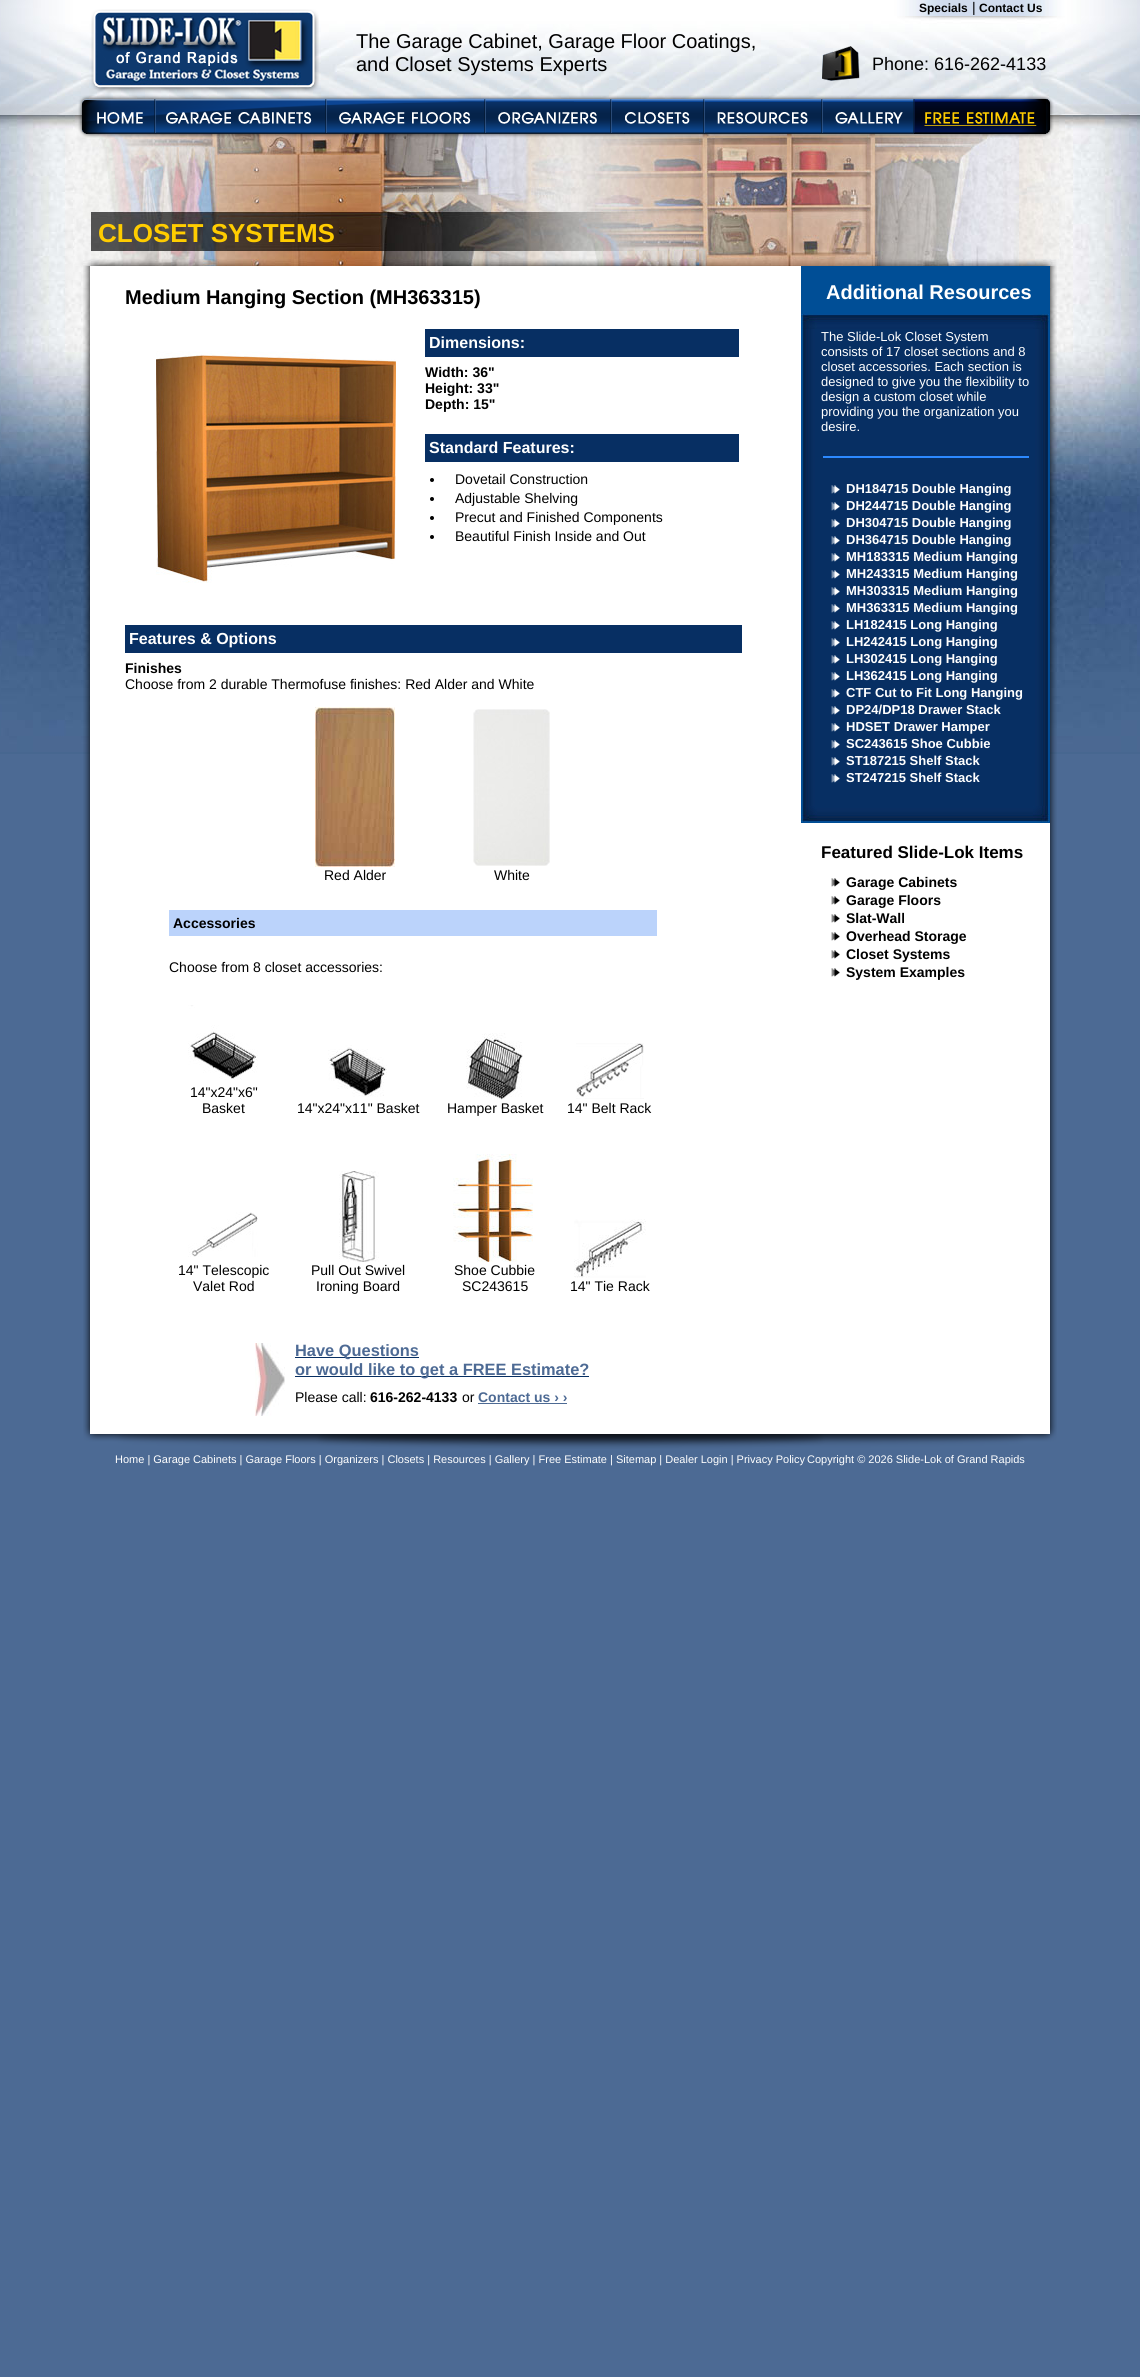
#include <cairo.h>
#include <math.h>
#include <stddef.h>


static void rgb(cairo_t *cr, int r, int g, int b)
{
	cairo_set_source_rgb(cr, r / 255.0, g / 255.0, b / 255.0);
}

static void face(cairo_t *cr, const char *family, double size, int italic, int bold)
{
	cairo_select_font_face(cr, family, italic ? CAIRO_FONT_SLANT_ITALIC : CAIRO_FONT_SLANT_NORMAL,
		bold ? CAIRO_FONT_WEIGHT_BOLD : CAIRO_FONT_WEIGHT_NORMAL);
	cairo_set_font_size(cr, size);
}

static void label(cairo_t *cr, double x, double y, const char *s)
{
	cairo_move_to(cr, x, y);
	cairo_show_text(cr, s);
}

static void rect(cairo_t *cr, double x, double y, double w, double h)
{
	cairo_rectangle(cr, x, y, w, h);
	cairo_fill(cr);
}

static void image(cairo_t *cr, const char *path, double x, double y, double w, double h)
{
	cairo_surface_t *image = cairo_image_surface_create_from_png(path);
	cairo_save(cr);
	cairo_set_source_surface(cr, image, x, y);
	cairo_rectangle(cr, x, y, w, h);
	cairo_fill(cr);
	cairo_restore(cr);
	cairo_surface_destroy(image);
}

static void draw(cairo_t *cr) {
	rgb(cr, 76, 106, 148);
	cairo_paint(cr);
	image(cr, "image0.png", 0, 115, 1140, 639);
	image(cr, "image1.png", 0, 0, 1140, 115);
	image(cr, "image2.png", 91, 9, 228, 84);
	face(cr, "Liberation Sans", 20, 0, 0);
	rgb(cr, 0, 0, 0);
	label(cr, 356, 48, "The Garage Cabinet, Garage Floor Coatings,");
	label(cr, 356, 71, "and Closet Systems Experts");
	face(cr, "Liberation Sans", 12, 0, 1);
	label(cr, 919, 12, "Specials");
	face(cr, "Liberation Sans", 14, 0, 0);
	label(cr, 972, 12, "|");
	face(cr, "Liberation Sans", 12, 0, 1);
	label(cr, 979, 12, "Contact Us");
	image(cr, "image3.png", 822, 46, 38, 35);
	face(cr, "Liberation Sans", 18, 0, 0);
	label(cr, 872, 70, "Phone: 616-262-4133");
	image(cr, "image12.png", 75, 115, 990, 151);
	image(cr, "image4.png", 78, 95, 77, 43);
	image(cr, "image5.png", 155, 95, 171, 43);
	image(cr, "image6.png", 326, 95, 159, 43);
	image(cr, "image7.png", 485, 95, 126, 43);
	image(cr, "image8.png", 611, 95, 93, 43);
	image(cr, "image9.png", 704, 95, 118, 43);
	image(cr, "image10.png", 822, 95, 92, 43);
	image(cr, "image11.png", 914, 95, 140, 43);
	face(cr, "Liberation Sans", 26, 0, 1);
	rgb(cr, 255, 204, 0);
	label(cr, 98, 242, "CLOSET SYSTEMS");
	image(cr, "image13.png", 83, 266, 974, 1151);
	face(cr, "Liberation Sans", 20, 0, 1);
	rgb(cr, 0, 0, 0);
	label(cr, 125, 304, "Medium Hanging Section (MH363315)");
	image(cr, "image14.png", 156, 351, 240, 232);
	rgb(cr, 7, 47, 99);
	rect(cr, 425, 329, 314, 28);
	face(cr, "Liberation Sans", 16, 0, 1);
	rgb(cr, 255, 255, 255);
	label(cr, 429, 348, "Dimensions:");
	face(cr, "Liberation Sans", 14, 0, 1);
	rgb(cr, 0, 0, 0);
	label(cr, 425, 377, "Width: 36\"");
	label(cr, 425, 393, "Height: 33\"");
	label(cr, 425, 409, "Depth: 15\"");
	rgb(cr, 7, 47, 99);
	rect(cr, 425, 434, 314, 28);
	face(cr, "Liberation Sans", 16, 0, 1);
	rgb(cr, 255, 255, 255);
	label(cr, 429, 453, "Standard Features:");
	rgb(cr, 0, 0, 0);
	cairo_new_path(cr);
	cairo_arc(cr, 432, 480, 2, 0, 2 * M_PI);
	cairo_fill(cr);
	face(cr, "Liberation Sans", 14, 0, 0);
	label(cr, 455, 484, "Dovetail Construction");
	cairo_new_path(cr);
	cairo_arc(cr, 432, 499, 2, 0, 2 * M_PI);
	cairo_fill(cr);
	label(cr, 455, 503, "Adjustable Shelving");
	cairo_new_path(cr);
	cairo_arc(cr, 432, 518, 2, 0, 2 * M_PI);
	cairo_fill(cr);
	label(cr, 455, 522, "Precut and Finished Components");
	cairo_new_path(cr);
	cairo_arc(cr, 432, 537, 2, 0, 2 * M_PI);
	cairo_fill(cr);
	label(cr, 455, 541, "Beautiful Finish Inside and Out");
	rgb(cr, 7, 47, 99);
	rect(cr, 125, 625, 617, 28);
	face(cr, "Liberation Sans", 16, 0, 1);
	rgb(cr, 255, 255, 255);
	label(cr, 129, 644, "Features & Options");
	face(cr, "Liberation Sans", 14, 0, 1);
	rgb(cr, 0, 0, 0);
	label(cr, 125, 673, "Finishes");
	face(cr, "Liberation Sans", 14, 0, 0);
	label(cr, 125, 689, "Choose from 2 durable Thermofuse finishes: Red Alder and White");
	image(cr, "image15.png", 315, 707, 80, 160);
	label(cr, 324, 880, "Red Alder");
	image(cr, "image16.png", 473, 709, 77, 157);
	label(cr, 494, 880, "White");
	rgb(cr, 187, 211, 251);
	rect(cr, 169, 910, 488, 26);
	face(cr, "Liberation Sans", 14, 0, 1);
	rgb(cr, 0, 0, 0);
	label(cr, 173, 928, "Accessories");
	face(cr, "Liberation Sans", 14, 0, 0);
	label(cr, 169, 972, "Choose from 8 closet accessories:");
	image(cr, "image17.png", 188, 1005, 70, 75);
	label(cr, 190, 1097, "14\"x24\"x6\"");
	label(cr, 202, 1113, "Basket");
	image(cr, "image18.png", 328, 1045, 59, 52);
	label(cr, 297, 1113, "14\"x24\"x11\" Basket");
	image(cr, "image19.png", 466, 1033, 57, 67);
	label(cr, 447, 1113, "Hamper Basket");
	image(cr, "image20.png", 576, 1043, 68, 56);
	label(cr, 567, 1113, "14\" Belt Rack");
	image(cr, "image21.png", 188, 1212, 70, 45);
	label(cr, 178, 1275, "14\" Telescopic");
	label(cr, 193, 1291, "Valet Rod");
	image(cr, "image22.png", 339, 1171, 40, 91);
	label(cr, 311, 1275, "Pull Out Swivel");
	label(cr, 316, 1291, "Ironing Board");
	image(cr, "image23.png", 453, 1154, 80, 108);
	label(cr, 454, 1275, "Shoe Cubbie");
	label(cr, 462, 1291, "SC243615");
	image(cr, "image24.png", 574, 1219, 72, 59);
	label(cr, 570, 1291, "14\" Tie Rack");
	image(cr, "image25.png", 255, 1343, 30, 73);
	rgb(cr, 7, 47, 99);
	rect(cr, 295, 1357, 124, 1);
	face(cr, "Liberation Sans", 16.4, 0, 1);
	rgb(cr, 77, 106, 148);
	label(cr, 295, 1356, "Have Questions");
	rgb(cr, 7, 47, 99);
	rect(cr, 295, 1376, 294, 1);
	rgb(cr, 77, 106, 148);
	label(cr, 295, 1375, "or would like to get a FREE Estimate?");
	face(cr, "Liberation Sans", 14, 0, 0);
	rgb(cr, 0, 0, 0);
	label(cr, 295, 1402, "Please call:");
	face(cr, "Liberation Sans", 14, 0, 1);
	label(cr, 370, 1402, "616-262-4133");
	face(cr, "Liberation Sans", 14, 0, 0);
	label(cr, 462, 1402, "or");
	face(cr, "Liberation Sans", 14, 0, 1);
	rgb(cr, 77, 106, 148);
	label(cr, 478, 1402, "Contact us › ›");
	rect(cr, 478, 1403, 89, 1);
	image(cr, "image26.png", 801, 266, 249, 63);
	face(cr, "Liberation Sans", 20, 0, 1);
	rgb(cr, 255, 255, 255);
	label(cr, 826, 299, "Additional Resources");
	image(cr, "image27.png", 801, 329, 249, 477);
	face(cr, "Liberation Sans", 13, 0, 0);
	label(cr, 821, 341, "The Slide-Lok Closet System");
	label(cr, 821, 356, "consists of 17 closet sections and 8");
	label(cr, 821, 371, "closet accessories. Each section is");
	label(cr, 821, 386, "designed to give you the flexibility to");
	label(cr, 821, 401, "design a custom closet while");
	label(cr, 821, 416, "providing you the organization you");
	label(cr, 821, 431, "desire.");
	rgb(cr, 44, 137, 255);
	rect(cr, 823, 456, 206, 2);
	image(cr, "image28.png", 831, 485, 9, 9);
	face(cr, "Liberation Sans", 13, 0, 1);
	rgb(cr, 255, 255, 255);
	label(cr, 846, 493, "DH184715 Double Hanging");
	image(cr, "image28.png", 831, 502, 9, 9);
	label(cr, 846, 510, "DH244715 Double Hanging");
	image(cr, "image28.png", 831, 519, 9, 9);
	label(cr, 846, 527, "DH304715 Double Hanging");
	image(cr, "image28.png", 831, 536, 9, 9);
	label(cr, 846, 544, "DH364715 Double Hanging");
	image(cr, "image28.png", 831, 553, 9, 9);
	label(cr, 846, 561, "MH183315 Medium Hanging");
	image(cr, "image28.png", 831, 570, 9, 9);
	label(cr, 846, 578, "MH243315 Medium Hanging");
	image(cr, "image28.png", 831, 587, 9, 9);
	label(cr, 846, 595, "MH303315 Medium Hanging");
	image(cr, "image28.png", 831, 604, 9, 9);
	label(cr, 846, 612, "MH363315 Medium Hanging");
	image(cr, "image28.png", 831, 621, 9, 9);
	label(cr, 846, 629, "LH182415 Long Hanging");
	image(cr, "image28.png", 831, 638, 9, 9);
	label(cr, 846, 646, "LH242415 Long Hanging");
	image(cr, "image28.png", 831, 655, 9, 9);
	label(cr, 846, 663, "LH302415 Long Hanging");
	image(cr, "image28.png", 831, 672, 9, 9);
	label(cr, 846, 680, "LH362415 Long Hanging");
	image(cr, "image28.png", 831, 689, 9, 9);
	label(cr, 846, 697, "CTF Cut to Fit Long Hanging");
	image(cr, "image28.png", 831, 706, 9, 9);
	label(cr, 846, 714, "DP24/DP18 Drawer Stack");
	image(cr, "image28.png", 831, 723, 9, 9);
	label(cr, 846, 731, "HDSET Drawer Hamper");
	image(cr, "image28.png", 831, 740, 9, 9);
	label(cr, 846, 748, "SC243615 Shoe Cubbie");
	image(cr, "image28.png", 831, 757, 9, 9);
	label(cr, 846, 765, "ST187215 Shelf Stack");
	image(cr, "image28.png", 831, 774, 9, 9);
	label(cr, 846, 782, "ST247215 Shelf Stack");
	image(cr, "image29.png", 801, 806, 249, 17);
	face(cr, "Liberation Sans", 17, 0, 1);
	rgb(cr, 0, 0, 0);
	label(cr, 821, 858, "Featured Slide-Lok Items");
	image(cr, "image30.png", 831, 878, 9, 9);
	face(cr, "Liberation Sans", 14, 0, 1);
	label(cr, 846, 887, "Garage Cabinets");
	image(cr, "image30.png", 831, 896, 9, 9);
	label(cr, 846, 905, "Garage Floors");
	image(cr, "image30.png", 831, 914, 9, 9);
	label(cr, 846, 923, "Slat-Wall");
	image(cr, "image30.png", 831, 932, 9, 9);
	label(cr, 846, 941, "Overhead Storage");
	image(cr, "image30.png", 831, 950, 9, 9);
	label(cr, 846, 959, "Closet Systems");
	image(cr, "image30.png", 831, 968, 9, 9);
	label(cr, 846, 977, "System Examples");
	image(cr, "image31.png", 83, 1417, 974, 32);
	face(cr, "Liberation Sans", 11, 0, 0);
	rgb(cr, 255, 255, 255);
	label(cr, 115, 1463, "Home | Garage Cabinets | Garage Floors | Organizers | Closets | Resources | Gallery | Free Estimate | Sitemap | Dealer Login | Privacy Policy");
	label(cr, 807, 1463, "Copyright © 2026 Slide-Lok of Grand Rapids");
}

int main(void) {
	cairo_surface_t *surface = cairo_image_surface_create(CAIRO_FORMAT_RGB24, 1140, 2377);
	cairo_t *cr = cairo_create(surface);
	cairo_font_options_t *options = cairo_font_options_create();
	cairo_font_options_set_hint_metrics(options, CAIRO_HINT_METRICS_OFF);
	cairo_font_options_set_hint_style(options, CAIRO_HINT_STYLE_NONE);
	cairo_set_font_options(cr, options);
	cairo_set_miter_limit(cr, 4);
	draw(cr);
	cairo_surface_write_to_png(surface, "render.png");
	cairo_font_options_destroy(options);
	cairo_destroy(cr);
	cairo_surface_destroy(surface);
	return 0;
}
